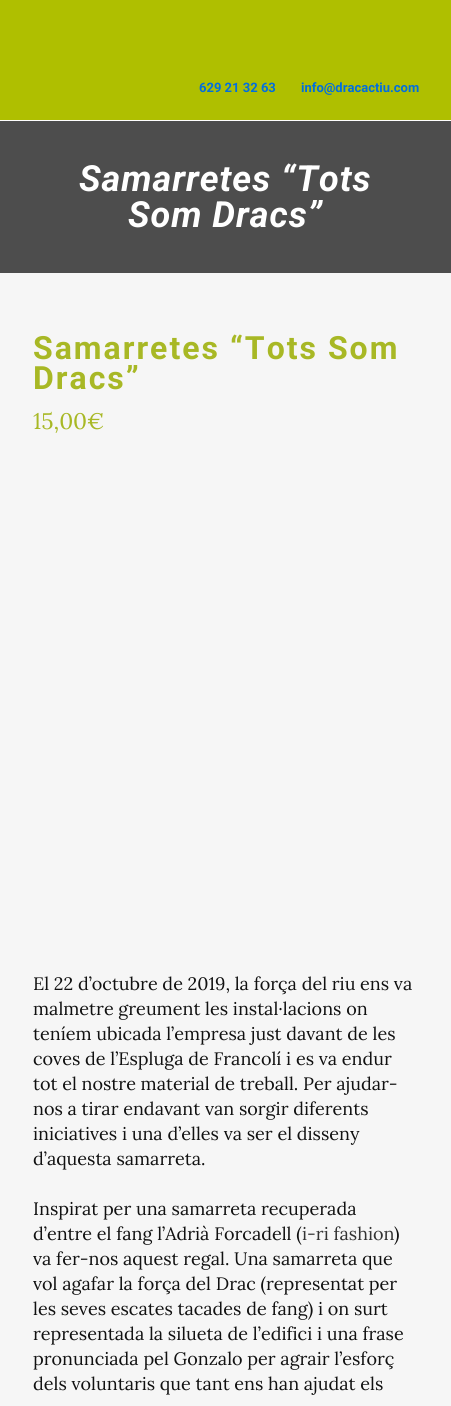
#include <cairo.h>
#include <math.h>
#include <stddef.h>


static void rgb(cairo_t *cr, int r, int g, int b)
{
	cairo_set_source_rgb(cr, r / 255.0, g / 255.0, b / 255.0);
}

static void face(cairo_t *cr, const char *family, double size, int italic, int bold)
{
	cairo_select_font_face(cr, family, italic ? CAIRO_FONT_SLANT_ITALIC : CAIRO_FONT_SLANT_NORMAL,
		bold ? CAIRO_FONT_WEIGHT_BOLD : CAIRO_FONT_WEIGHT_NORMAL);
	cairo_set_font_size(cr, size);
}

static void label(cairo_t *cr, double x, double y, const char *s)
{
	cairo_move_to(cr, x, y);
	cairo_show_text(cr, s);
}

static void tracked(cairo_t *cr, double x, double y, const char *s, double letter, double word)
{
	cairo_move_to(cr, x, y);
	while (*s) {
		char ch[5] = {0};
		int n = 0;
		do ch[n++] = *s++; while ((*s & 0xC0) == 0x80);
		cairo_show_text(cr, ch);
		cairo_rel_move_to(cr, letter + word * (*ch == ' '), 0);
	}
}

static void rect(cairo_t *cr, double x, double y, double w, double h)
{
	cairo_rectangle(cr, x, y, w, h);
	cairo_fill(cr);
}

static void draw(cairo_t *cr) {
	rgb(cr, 246, 246, 246);
	cairo_paint(cr);
	rgb(cr, 175, 191, 0);
	rect(cr, 0, 0, 451, 120);
	face(cr, "Roboto", 13, 0, 1);
	rgb(cr, 0, 110, 223);
	label(cr, 199, 92, "629 21 32 63");
	label(cr, 301, 92, "info@dracactiu.com");
	rgb(cr, 255, 255, 255);
	rect(cr, 0, 120, 451, 1);
	rgb(cr, 77, 77, 77);
	rect(cr, 0, 121, 451, 152);
	face(cr, "Roboto", 36, 1, 1);
	rgb(cr, 255, 255, 255);
	tracked(cr, 79, 191, "Samarretes “Tots", 1, 0);
	tracked(cr, 128, 227, "Som Dracs”", 1, 0);
	face(cr, "Roboto", 32, 0, 1);
	rgb(cr, 168, 184, 37);
	tracked(cr, 33, 359, "Samarretes “Tots Som", 2, 0);
	tracked(cr, 33, 389, "Dracs”", 2, 0);
	face(cr, "Lora", 22.5, 0, 0);
	label(cr, 33, 429, "15,00€");
	face(cr, "Lora", 18, 0, 0);
	rgb(cr, 17, 17, 17);
	label(cr, 33, 990, "El 22 d’octubre de 2019, la força del riu ens va");
	label(cr, 33, 1015, "malmetre greument les instal·lacions on");
	label(cr, 33, 1040, "teníem ubicada l’empresa just davant de les");
	label(cr, 33, 1065, "coves de l’Espluga de Francolí i es va endur");
	label(cr, 33, 1090, "tot el nostre material de treball. Per ajudar-");
	label(cr, 33, 1115, "nos a tirar endavant van sorgir diferents");
	label(cr, 33, 1140, "iniciatives i una d’elles va ser el disseny");
	label(cr, 33, 1165, "d’aquesta samarreta.");
	label(cr, 33, 1215, "Inspirat per una samarreta recuperada");
	label(cr, 33, 1240, "d’entre el fang l’Adrià Forcadell (");
	rgb(cr, 51, 51, 51);
	label(cr, 302, 1240, "i-ri fashion");
	rgb(cr, 17, 17, 17);
	label(cr, 394, 1240, ")");
	label(cr, 33, 1265, "va fer-nos aquest regal. Una samarreta que");
	label(cr, 33, 1290, "vol agafar la força del Drac (representat per");
	label(cr, 33, 1315, "les seves escates tacades de fang) i on surt");
	label(cr, 33, 1340, "representada la silueta de l’edifici i una frase");
	label(cr, 33, 1365, "pronunciada pel Gonzalo per agrair l’esforç");
	label(cr, 33, 1390, "dels voluntaris que tant ens han ajudat els");
}

int main(void) {
	cairo_surface_t *surface = cairo_image_surface_create(CAIRO_FORMAT_RGB24, 451, 1406);
	cairo_t *cr = cairo_create(surface);
	cairo_font_options_t *options = cairo_font_options_create();
	cairo_font_options_set_hint_metrics(options, CAIRO_HINT_METRICS_OFF);
	cairo_font_options_set_hint_style(options, CAIRO_HINT_STYLE_NONE);
	cairo_set_font_options(cr, options);
	cairo_set_miter_limit(cr, 4);
	draw(cr);
	cairo_surface_write_to_png(surface, "render.png");
	cairo_font_options_destroy(options);
	cairo_destroy(cr);
	cairo_surface_destroy(surface);
	return 0;
}
